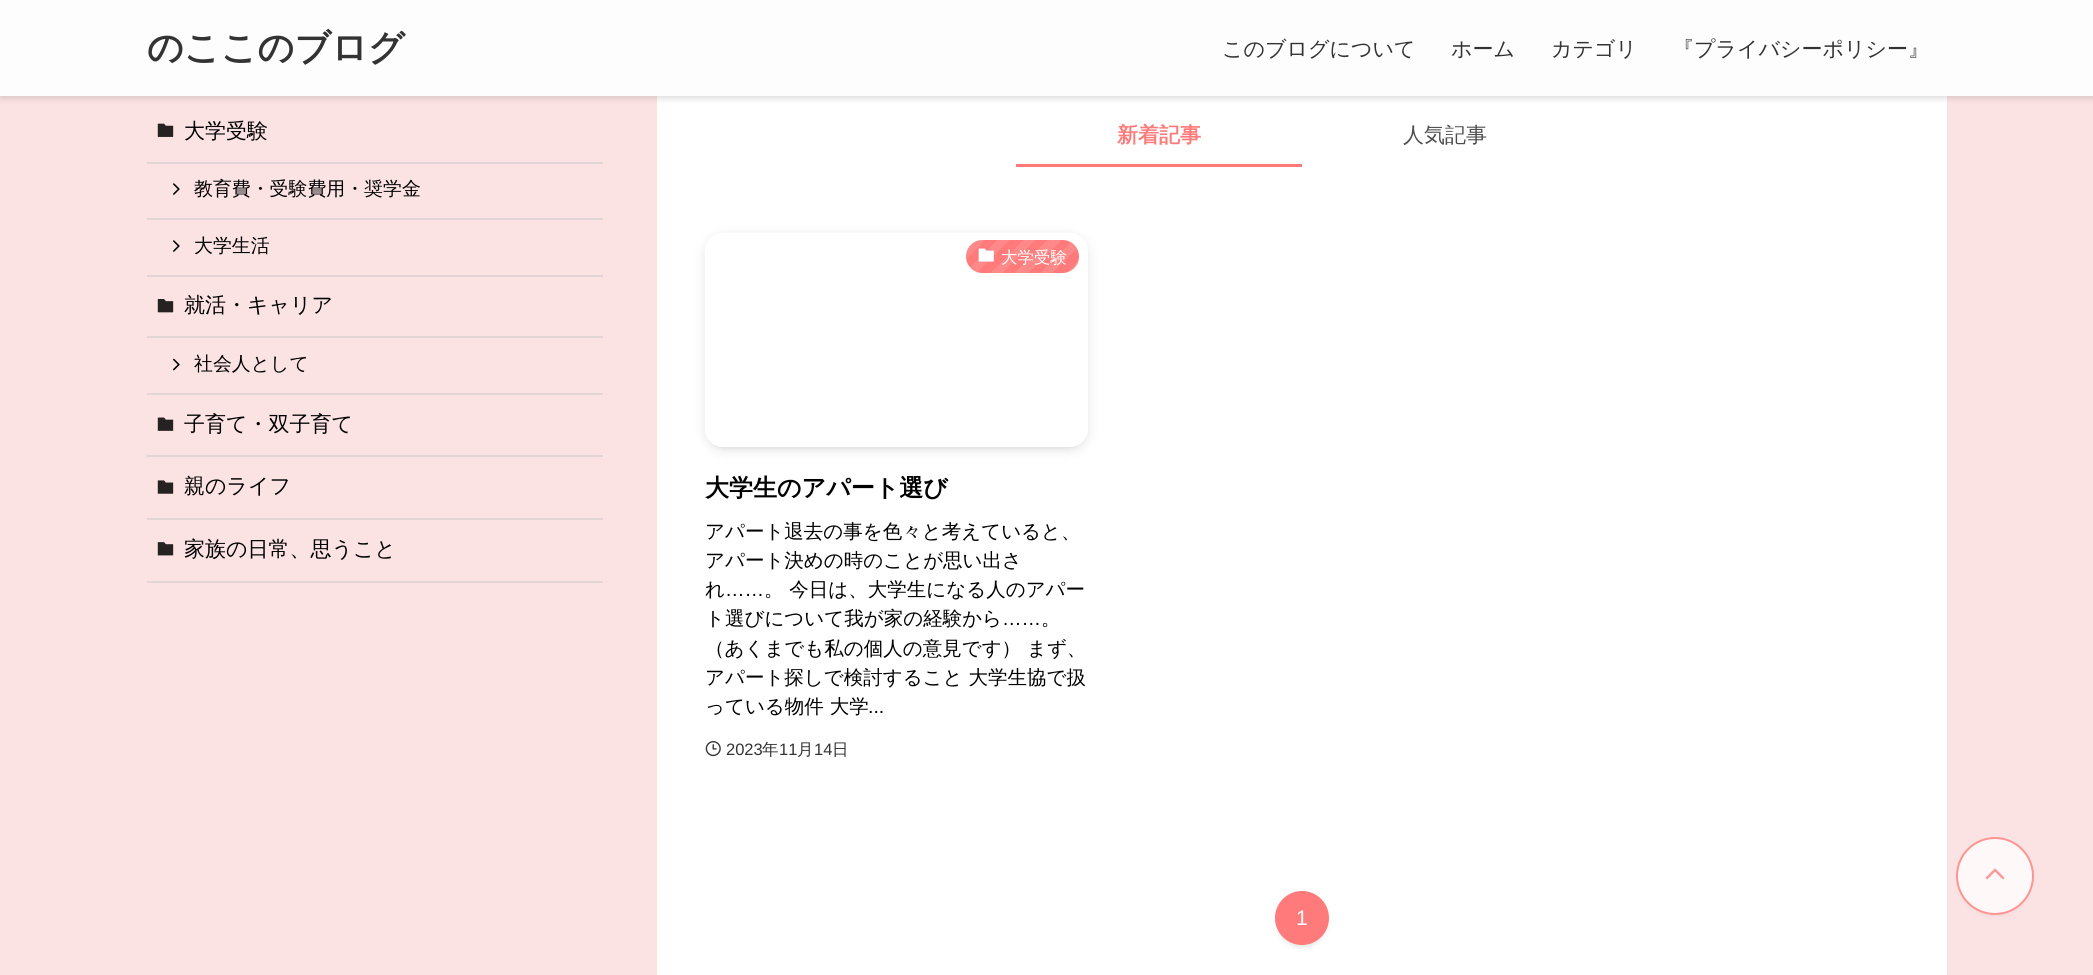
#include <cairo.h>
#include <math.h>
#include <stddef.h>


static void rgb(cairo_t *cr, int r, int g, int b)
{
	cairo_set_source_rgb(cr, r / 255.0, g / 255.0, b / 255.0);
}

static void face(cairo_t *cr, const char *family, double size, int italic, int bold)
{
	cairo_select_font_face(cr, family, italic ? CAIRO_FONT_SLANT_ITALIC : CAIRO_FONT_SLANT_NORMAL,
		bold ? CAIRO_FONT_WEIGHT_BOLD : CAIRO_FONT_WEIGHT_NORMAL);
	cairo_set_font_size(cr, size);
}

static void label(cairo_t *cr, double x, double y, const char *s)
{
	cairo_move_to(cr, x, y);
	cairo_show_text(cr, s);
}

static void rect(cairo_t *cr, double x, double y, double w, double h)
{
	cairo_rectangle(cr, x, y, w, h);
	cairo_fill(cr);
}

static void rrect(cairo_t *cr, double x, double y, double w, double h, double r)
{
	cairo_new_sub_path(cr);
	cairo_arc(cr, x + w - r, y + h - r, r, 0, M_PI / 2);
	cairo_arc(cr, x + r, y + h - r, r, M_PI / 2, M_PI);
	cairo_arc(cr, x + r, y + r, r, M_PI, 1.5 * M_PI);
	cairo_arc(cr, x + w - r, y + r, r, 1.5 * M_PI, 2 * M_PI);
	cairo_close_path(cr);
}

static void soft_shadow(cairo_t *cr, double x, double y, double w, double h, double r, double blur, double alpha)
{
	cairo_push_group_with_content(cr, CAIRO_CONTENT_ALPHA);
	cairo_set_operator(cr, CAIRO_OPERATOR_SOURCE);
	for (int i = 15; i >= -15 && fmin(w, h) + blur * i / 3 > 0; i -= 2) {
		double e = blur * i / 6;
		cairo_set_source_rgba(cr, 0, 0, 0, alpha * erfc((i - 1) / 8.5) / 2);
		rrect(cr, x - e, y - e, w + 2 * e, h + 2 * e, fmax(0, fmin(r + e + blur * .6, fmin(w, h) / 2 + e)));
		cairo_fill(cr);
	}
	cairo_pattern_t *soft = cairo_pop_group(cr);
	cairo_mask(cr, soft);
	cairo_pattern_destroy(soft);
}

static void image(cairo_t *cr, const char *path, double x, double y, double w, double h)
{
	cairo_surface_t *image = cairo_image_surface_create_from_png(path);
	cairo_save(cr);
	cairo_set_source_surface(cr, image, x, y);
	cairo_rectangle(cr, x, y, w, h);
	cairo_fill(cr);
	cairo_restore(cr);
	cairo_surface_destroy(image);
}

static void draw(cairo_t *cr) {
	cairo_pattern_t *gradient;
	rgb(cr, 252, 227, 227);
	cairo_paint(cr);
	rgb(cr, 255, 255, 255);
	rect(cr, 657, 96, 1290, 879);
	rgb(cr, 0, 0, 0);
	soft_shadow(cr, 0, 3, 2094, 96, 0, 3, 0.12);
	rgb(cr, 253, 253, 253);
	rect(cr, 0, 0, 2093, 96);
	face(cr, "WenQuanYi Zen Hei", 36, 0, 1);
	rgb(cr, 51, 51, 51);
	label(cr, 147, 60, "のここのブログ");
	face(cr, "WenQuanYi Zen Hei Medium", 21, 0, 0);
	label(cr, 1222, 56, "このブログについて");
	label(cr, 1451, 56, "ホーム");
	label(cr, 1551, 56, "カテゴリ");
	label(cr, 1673, 56, "『プライバシーポリシー』");
	rgb(cr, 226, 213, 213);
	rect(cr, 147, 162, 456, 2);
	image(cr, "image0.png", 157, 123, 17, 14);
	rgb(cr, 0, 0, 0);
	label(cr, 184, 138, "大学受験");
	rgb(cr, 226, 213, 213);
	rect(cr, 147, 218, 456, 2);
	image(cr, "image1.png", 173, 183, 7, 12);
	face(cr, "WenQuanYi Zen Hei Medium", 18.9, 0, 0);
	rgb(cr, 0, 0, 0);
	label(cr, 194, 195, "教育費・受験費用・奨学金");
	rgb(cr, 226, 213, 213);
	rect(cr, 147, 275, 456, 2);
	image(cr, "image1.png", 173, 240, 7, 12);
	rgb(cr, 0, 0, 0);
	label(cr, 194, 252, "大学生活");
	rgb(cr, 226, 213, 213);
	rect(cr, 147, 336, 456, 2);
	image(cr, "image2.png", 157, 299, 17, 14);
	face(cr, "WenQuanYi Zen Hei Medium", 21, 0, 0);
	rgb(cr, 0, 0, 0);
	label(cr, 184, 312, "就活・キャリア");
	rgb(cr, 226, 213, 213);
	rect(cr, 147, 393, 456, 2);
	image(cr, "image3.png", 173, 358, 7, 13);
	face(cr, "WenQuanYi Zen Hei Medium", 18.9, 0, 0);
	rgb(cr, 0, 0, 0);
	label(cr, 194, 370, "社会人として");
	rgb(cr, 226, 213, 213);
	rect(cr, 147, 455, 456, 2);
	image(cr, "image4.png", 157, 417, 17, 14);
	face(cr, "WenQuanYi Zen Hei Medium", 21, 0, 0);
	rgb(cr, 0, 0, 0);
	label(cr, 184, 431, "子育て・双子育て");
	rgb(cr, 226, 213, 213);
	rect(cr, 147, 518, 456, 2);
	image(cr, "image5.png", 157, 480, 17, 14);
	rgb(cr, 0, 0, 0);
	label(cr, 184, 493, "親のライフ");
	rgb(cr, 226, 213, 213);
	rect(cr, 147, 581, 456, 2);
	image(cr, "image6.png", 157, 542, 17, 14);
	rgb(cr, 0, 0, 0);
	label(cr, 184, 556, "家族の日常、思うこと");
	face(cr, "WenQuanYi Zen Hei", 21, 0, 1);
	rgb(cr, 255, 122, 122);
	label(cr, 1117, 142, "新着記事");
	rect(cr, 1016, 164, 286, 3);
	face(cr, "WenQuanYi Zen Hei Medium", 21, 0, 0);
	rgb(cr, 77, 77, 77);
	label(cr, 1403, 142, "人気記事");
	cairo_save(cr);
	cairo_set_fill_rule(cr, CAIRO_FILL_RULE_EVEN_ODD);
	cairo_new_path(cr);
	cairo_move_to(cr, 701, 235);
	cairo_line_to(cr, 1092, 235);
	cairo_line_to(cr, 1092, 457);
	cairo_line_to(cr, 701, 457);
	cairo_close_path(cr);
	cairo_move_to(cr, 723, 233);
	cairo_line_to(cr, 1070, 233);
	cairo_curve_to(cr, 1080, 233, 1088, 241, 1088, 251);
	cairo_line_to(cr, 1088, 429);
	cairo_curve_to(cr, 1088, 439, 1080, 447, 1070, 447);
	cairo_line_to(cr, 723, 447);
	cairo_curve_to(cr, 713, 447, 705, 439, 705, 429);
	cairo_line_to(cr, 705, 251);
	cairo_curve_to(cr, 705, 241, 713, 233, 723, 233);
	cairo_close_path(cr);
	cairo_clip(cr);
	rgb(cr, 0, 0, 0);
	soft_shadow(cr, 711, 245, 371, 202, 12, 3, 0.1);
	cairo_restore(cr);
	cairo_save(cr);
	cairo_set_fill_rule(cr, CAIRO_FILL_RULE_EVEN_ODD);
	cairo_new_path(cr);
	cairo_move_to(cr, 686, 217);
	cairo_line_to(cr, 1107, 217);
	cairo_line_to(cr, 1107, 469);
	cairo_line_to(cr, 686, 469);
	cairo_close_path(cr);
	cairo_move_to(cr, 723, 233);
	cairo_line_to(cr, 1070, 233);
	cairo_curve_to(cr, 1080, 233, 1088, 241, 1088, 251);
	cairo_line_to(cr, 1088, 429);
	cairo_curve_to(cr, 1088, 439, 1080, 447, 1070, 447);
	cairo_line_to(cr, 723, 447);
	cairo_curve_to(cr, 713, 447, 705, 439, 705, 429);
	cairo_line_to(cr, 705, 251);
	cairo_curve_to(cr, 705, 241, 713, 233, 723, 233);
	cairo_close_path(cr);
	cairo_clip(cr);
	rgb(cr, 0, 0, 0);
	soft_shadow(cr, 705, 236, 383, 214, 18, 6, 0.1);
	cairo_restore(cr);
	rgb(cr, 255, 122, 122);
	rrect(cr, 966, 240, 113, 33, 16.5);
	cairo_fill(cr);
	gradient = cairo_pattern_create_linear(1059, 293, 982, 217);
	cairo_pattern_add_color_stop_rgba(gradient, 0, 1, 1, 1, 0.1);
	cairo_pattern_add_color_stop_rgba(gradient, 0.08, 1, 1, 1, 0.1);
	cairo_pattern_add_color_stop_rgba(gradient, 0.08, 1, 1, 1, 0);
	cairo_pattern_add_color_stop_rgba(gradient, 0.17, 1, 1, 1, 0);
	cairo_pattern_add_color_stop_rgba(gradient, 0.17, 1, 1, 1, 0.1);
	cairo_pattern_add_color_stop_rgba(gradient, 0.25, 1, 1, 1, 0.1);
	cairo_pattern_add_color_stop_rgba(gradient, 0.25, 1, 1, 1, 0);
	cairo_pattern_add_color_stop_rgba(gradient, 0.33, 1, 1, 1, 0);
	cairo_pattern_add_color_stop_rgba(gradient, 0.33, 1, 1, 1, 0.1);
	cairo_pattern_add_color_stop_rgba(gradient, 0.42, 1, 1, 1, 0.1);
	cairo_pattern_add_color_stop_rgba(gradient, 0.42, 1, 1, 1, 0);
	cairo_pattern_add_color_stop_rgba(gradient, 0.5, 1, 1, 1, 0);
	cairo_pattern_add_color_stop_rgba(gradient, 0.5, 1, 1, 1, 0.1);
	cairo_pattern_add_color_stop_rgba(gradient, 0.58, 1, 1, 1, 0.1);
	cairo_pattern_add_color_stop_rgba(gradient, 0.58, 1, 1, 1, 0);
	cairo_pattern_add_color_stop_rgba(gradient, 0.67, 1, 1, 1, 0);
	cairo_pattern_add_color_stop_rgba(gradient, 0.67, 1, 1, 1, 0.1);
	cairo_pattern_add_color_stop_rgba(gradient, 0.75, 1, 1, 1, 0.1);
	cairo_pattern_add_color_stop_rgba(gradient, 0.75, 1, 1, 1, 0);
	cairo_pattern_add_color_stop_rgba(gradient, 0.83, 1, 1, 1, 0);
	cairo_pattern_add_color_stop_rgba(gradient, 0.83, 1, 1, 1, 0.1);
	cairo_pattern_add_color_stop_rgba(gradient, 0.92, 1, 1, 1, 0.1);
	cairo_pattern_add_color_stop_rgba(gradient, 0.92, 1, 1, 1, 0);
	cairo_pattern_add_color_stop_rgba(gradient, 1, 0, 0, 0, 0);
	cairo_set_source(cr, gradient);
	cairo_pattern_destroy(gradient);
	rrect(cr, 966, 240, 113, 33, 16.5);
	cairo_fill(cr);
	image(cr, "image7.png", 978, 248, 16, 14);
	face(cr, "WenQuanYi Zen Hei Medium", 16.5, 0, 0);
	rgb(cr, 255, 255, 255);
	label(cr, 1001, 263, "大学受験");
	face(cr, "WenQuanYi Zen Hei", 24, 0, 1);
	rgb(cr, 0, 0, 0);
	label(cr, 705, 496, "大学生のアパート選び");
	face(cr, "WenQuanYi Zen Hei Medium", 19.5, 0, 0);
	label(cr, 705, 538, "アパート退去の事を色々と考えていると、");
	label(cr, 705, 567, "アパート決めの時のことが思い出さ");
	label(cr, 705, 596, "れ");
	face(cr, "Liberation Sans", 19.5, 0, 0);
	label(cr, 725, 596, "……");
	face(cr, "WenQuanYi Zen Hei Medium", 19.5, 0, 0);
	label(cr, 764, 596, "。 今日は、大学生になる人のアパー");
	label(cr, 705, 625, "ト選びについて我が家の経験から");
	face(cr, "Liberation Sans", 19.5, 0, 0);
	label(cr, 1002, 625, "……");
	face(cr, "WenQuanYi Zen Hei Medium", 19.5, 0, 0);
	label(cr, 1041, 625, "。");
	label(cr, 705, 655, "（あくまでも私の個人の意見です） まず、");
	label(cr, 705, 684, "アパート探しで検討すること 大学生協で扱");
	label(cr, 705, 713, "っている物件 大学");
	face(cr, "Liberation Sans", 19.5, 0, 0);
	label(cr, 868, 713, "...");
	image(cr, "image8.png", 705, 741, 16, 16);
	face(cr, "Liberation Sans", 16.5, 0, 0);
	rgb(cr, 51, 51, 51);
	label(cr, 726, 755, "2023");
	face(cr, "WenQuanYi Zen Hei Medium", 16.5, 0, 0);
	label(cr, 762, 755, "年");
	face(cr, "Liberation Sans", 16.5, 0, 0);
	label(cr, 779, 755, "11");
	face(cr, "WenQuanYi Zen Hei Medium", 16.5, 0, 0);
	label(cr, 797, 755, "月");
	face(cr, "Liberation Sans", 16.5, 0, 0);
	label(cr, 814, 755, "14");
	face(cr, "WenQuanYi Zen Hei Medium", 16.5, 0, 0);
	label(cr, 832, 755, "日");
	rgb(cr, 0, 0, 0);
	soft_shadow(cr, 1281, 903, 42, 42, 21, 3, 0.1);
	soft_shadow(cr, 1275, 894, 54, 54, 27, 3, 0.05);
	rgb(cr, 255, 122, 122);
	cairo_arc(cr, 1302, 918, 27, 0, 2 * M_PI);
	cairo_fill(cr);
	face(cr, "Liberation Sans", 21, 0, 0);
	rgb(cr, 255, 255, 255);
	label(cr, 1296, 925, "1");
	rgb(cr, 63, 57, 57);
	soft_shadow(cr, 1962, 849, 66, 66, 33, 3, 0.1);
	rgb(cr, 254, 248, 248);
	cairo_arc(cr, 1995, 876, 38, 0, 2 * M_PI);
	cairo_fill_preserve(cr);
	rgb(cr, 254, 148, 148);
	cairo_stroke(cr);
	image(cr, "image9.png", 1985, 868, 20, 12);
}

int main(void) {
	cairo_surface_t *surface = cairo_image_surface_create(CAIRO_FORMAT_RGB24, 2093, 975);
	cairo_t *cr = cairo_create(surface);
	cairo_font_options_t *options = cairo_font_options_create();
	cairo_font_options_set_hint_metrics(options, CAIRO_HINT_METRICS_OFF);
	cairo_font_options_set_hint_style(options, CAIRO_HINT_STYLE_NONE);
	cairo_set_font_options(cr, options);
	cairo_set_miter_limit(cr, 4);
	draw(cr);
	cairo_surface_write_to_png(surface, "render.png");
	cairo_font_options_destroy(options);
	cairo_destroy(cr);
	cairo_surface_destroy(surface);
	return 0;
}
